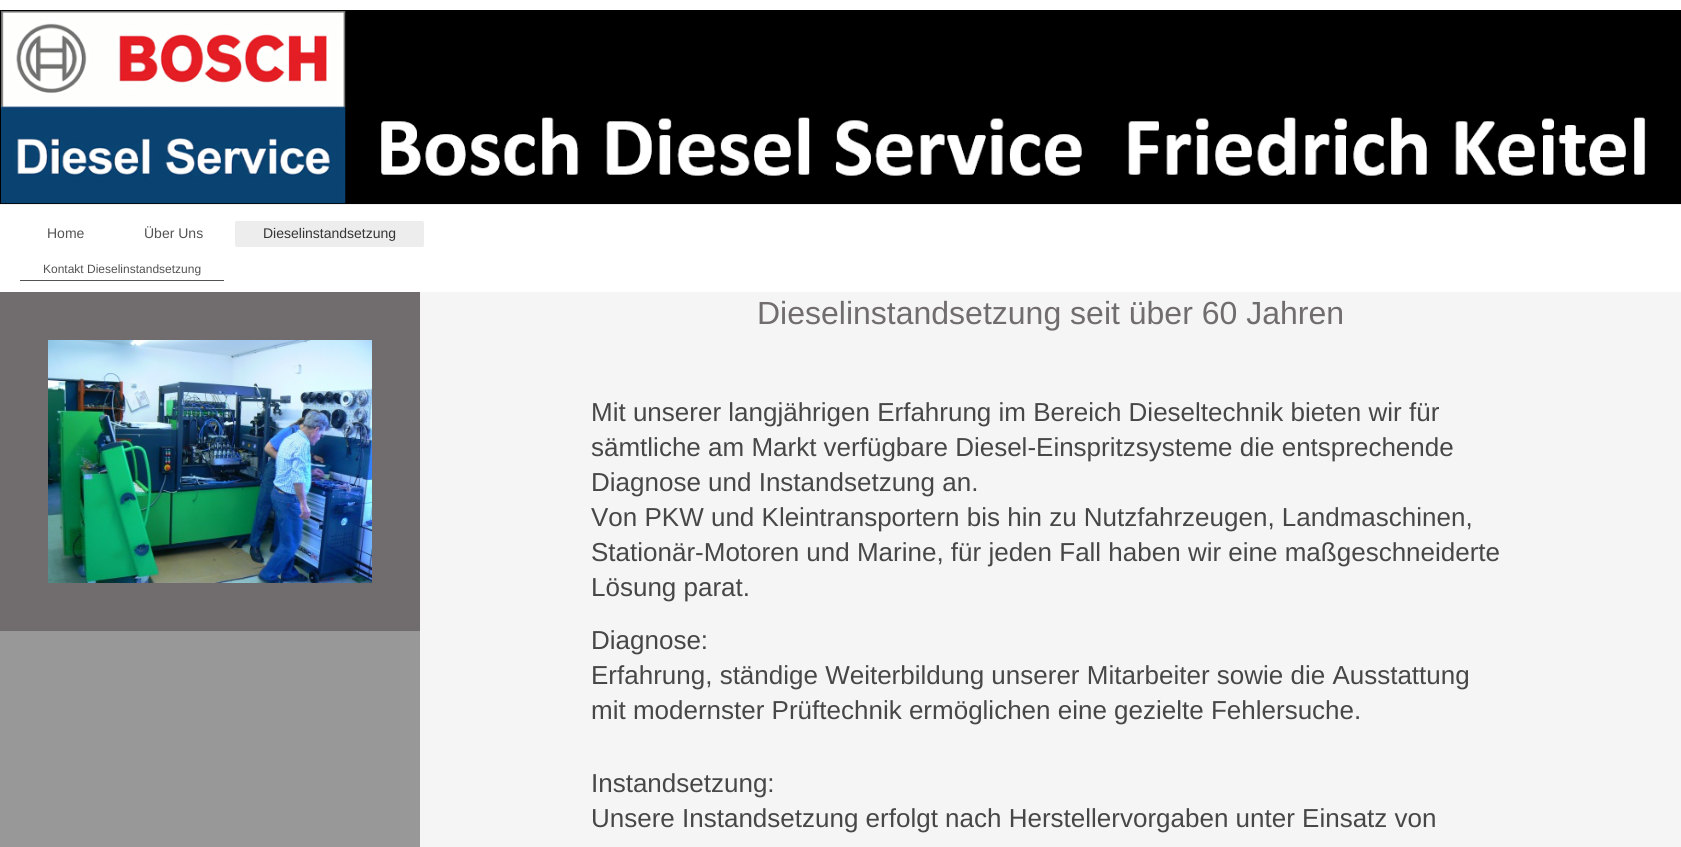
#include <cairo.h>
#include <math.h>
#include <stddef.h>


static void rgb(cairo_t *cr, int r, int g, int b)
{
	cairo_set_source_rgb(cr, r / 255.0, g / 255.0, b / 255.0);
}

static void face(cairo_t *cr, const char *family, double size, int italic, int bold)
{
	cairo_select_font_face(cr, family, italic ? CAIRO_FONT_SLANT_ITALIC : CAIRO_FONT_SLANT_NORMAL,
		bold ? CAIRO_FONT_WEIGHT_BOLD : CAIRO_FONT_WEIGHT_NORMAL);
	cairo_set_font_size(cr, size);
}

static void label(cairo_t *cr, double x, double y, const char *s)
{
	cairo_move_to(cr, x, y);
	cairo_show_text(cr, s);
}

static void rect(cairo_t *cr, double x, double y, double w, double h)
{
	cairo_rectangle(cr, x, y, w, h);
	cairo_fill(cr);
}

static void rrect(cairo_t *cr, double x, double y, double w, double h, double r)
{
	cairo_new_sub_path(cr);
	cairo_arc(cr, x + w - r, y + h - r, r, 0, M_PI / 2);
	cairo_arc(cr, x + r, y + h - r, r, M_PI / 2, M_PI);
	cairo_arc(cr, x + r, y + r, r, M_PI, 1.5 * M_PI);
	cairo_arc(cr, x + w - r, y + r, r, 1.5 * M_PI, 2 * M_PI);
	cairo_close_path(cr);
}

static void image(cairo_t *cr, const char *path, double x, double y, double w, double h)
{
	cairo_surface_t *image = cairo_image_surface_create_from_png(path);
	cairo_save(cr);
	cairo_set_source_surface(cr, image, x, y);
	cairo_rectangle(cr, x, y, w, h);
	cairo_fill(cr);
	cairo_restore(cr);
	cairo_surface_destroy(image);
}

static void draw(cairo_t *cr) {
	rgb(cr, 152, 152, 152);
	cairo_paint(cr);
	rgb(cr, 255, 255, 255);
	rect(cr, 0, 0, 1681, 292);
	image(cr, "image0.png", 0, 10, 1681, 195);
	face(cr, "Liberation Sans", 14, 0, 0);
	rgb(cr, 83, 83, 83);
	label(cr, 47, 238, "Home");
	label(cr, 144, 238, "Über Uns");
	rgb(cr, 237, 237, 237);
	rrect(cr, 235, 221, 189, 26, 2);
	cairo_fill(cr);
	rgb(cr, 53, 53, 53);
	label(cr, 263, 238, "Dieselinstandsetzung");
	rgb(cr, 83, 83, 83);
	rect(cr, 20, 280, 204, 1);
	face(cr, "Liberation Sans", 12, 0, 0);
	label(cr, 43, 273, "Kontakt Dieselinstandsetzung");
	rgb(cr, 113, 109, 110);
	rect(cr, 0, 292, 420, 339);
	image(cr, "image1.png", 48, 340, 324, 243);
	rgb(cr, 245, 245, 245);
	rect(cr, 420, 292, 1261, 555);
	face(cr, "Liberation Sans", 32, 0, 0);
	rgb(cr, 113, 109, 110);
	label(cr, 757, 324, "Dieselinstandsetzung seit über 60 Jahren");
	face(cr, "Liberation Sans", 26, 0, 0);
	rgb(cr, 71, 71, 71);
	label(cr, 591, 421, "Mit unserer langjährigen Erfahrung im Bereich Dieseltechnik bieten wir für");
	label(cr, 591, 456, "sämtliche am Markt verfügbare Diesel-Einspritzsysteme die entsprechende");
	label(cr, 591, 491, "Diagnose und Instandsetzung an.");
	label(cr, 591, 526, "Von PKW und Kleintransportern bis hin zu Nutzfahrzeugen, Landmaschinen,");
	label(cr, 591, 561, "Stationär-Motoren und Marine, für jeden Fall haben wir eine maßgeschneiderte");
	label(cr, 591, 596, "Lösung parat.");
	label(cr, 591, 649, "Diagnose:");
	label(cr, 591, 684, "Erfahrung, ständige Weiterbildung unserer Mitarbeiter sowie die Ausstattung");
	label(cr, 591, 719, "mit modernster Prüftechnik ermöglichen eine gezielte Fehlersuche.");
	label(cr, 591, 792, "Instandsetzung:");
	label(cr, 591, 827, "Unsere Instandsetzung erfolgt nach Herstellervorgaben unter Einsatz von");
}

int main(void) {
	cairo_surface_t *surface = cairo_image_surface_create(CAIRO_FORMAT_RGB24, 1681, 847);
	cairo_t *cr = cairo_create(surface);
	cairo_font_options_t *options = cairo_font_options_create();
	cairo_font_options_set_hint_metrics(options, CAIRO_HINT_METRICS_OFF);
	cairo_font_options_set_hint_style(options, CAIRO_HINT_STYLE_NONE);
	cairo_set_font_options(cr, options);
	cairo_set_miter_limit(cr, 4);
	draw(cr);
	cairo_surface_write_to_png(surface, "render.png");
	cairo_font_options_destroy(options);
	cairo_destroy(cr);
	cairo_surface_destroy(surface);
	return 0;
}
